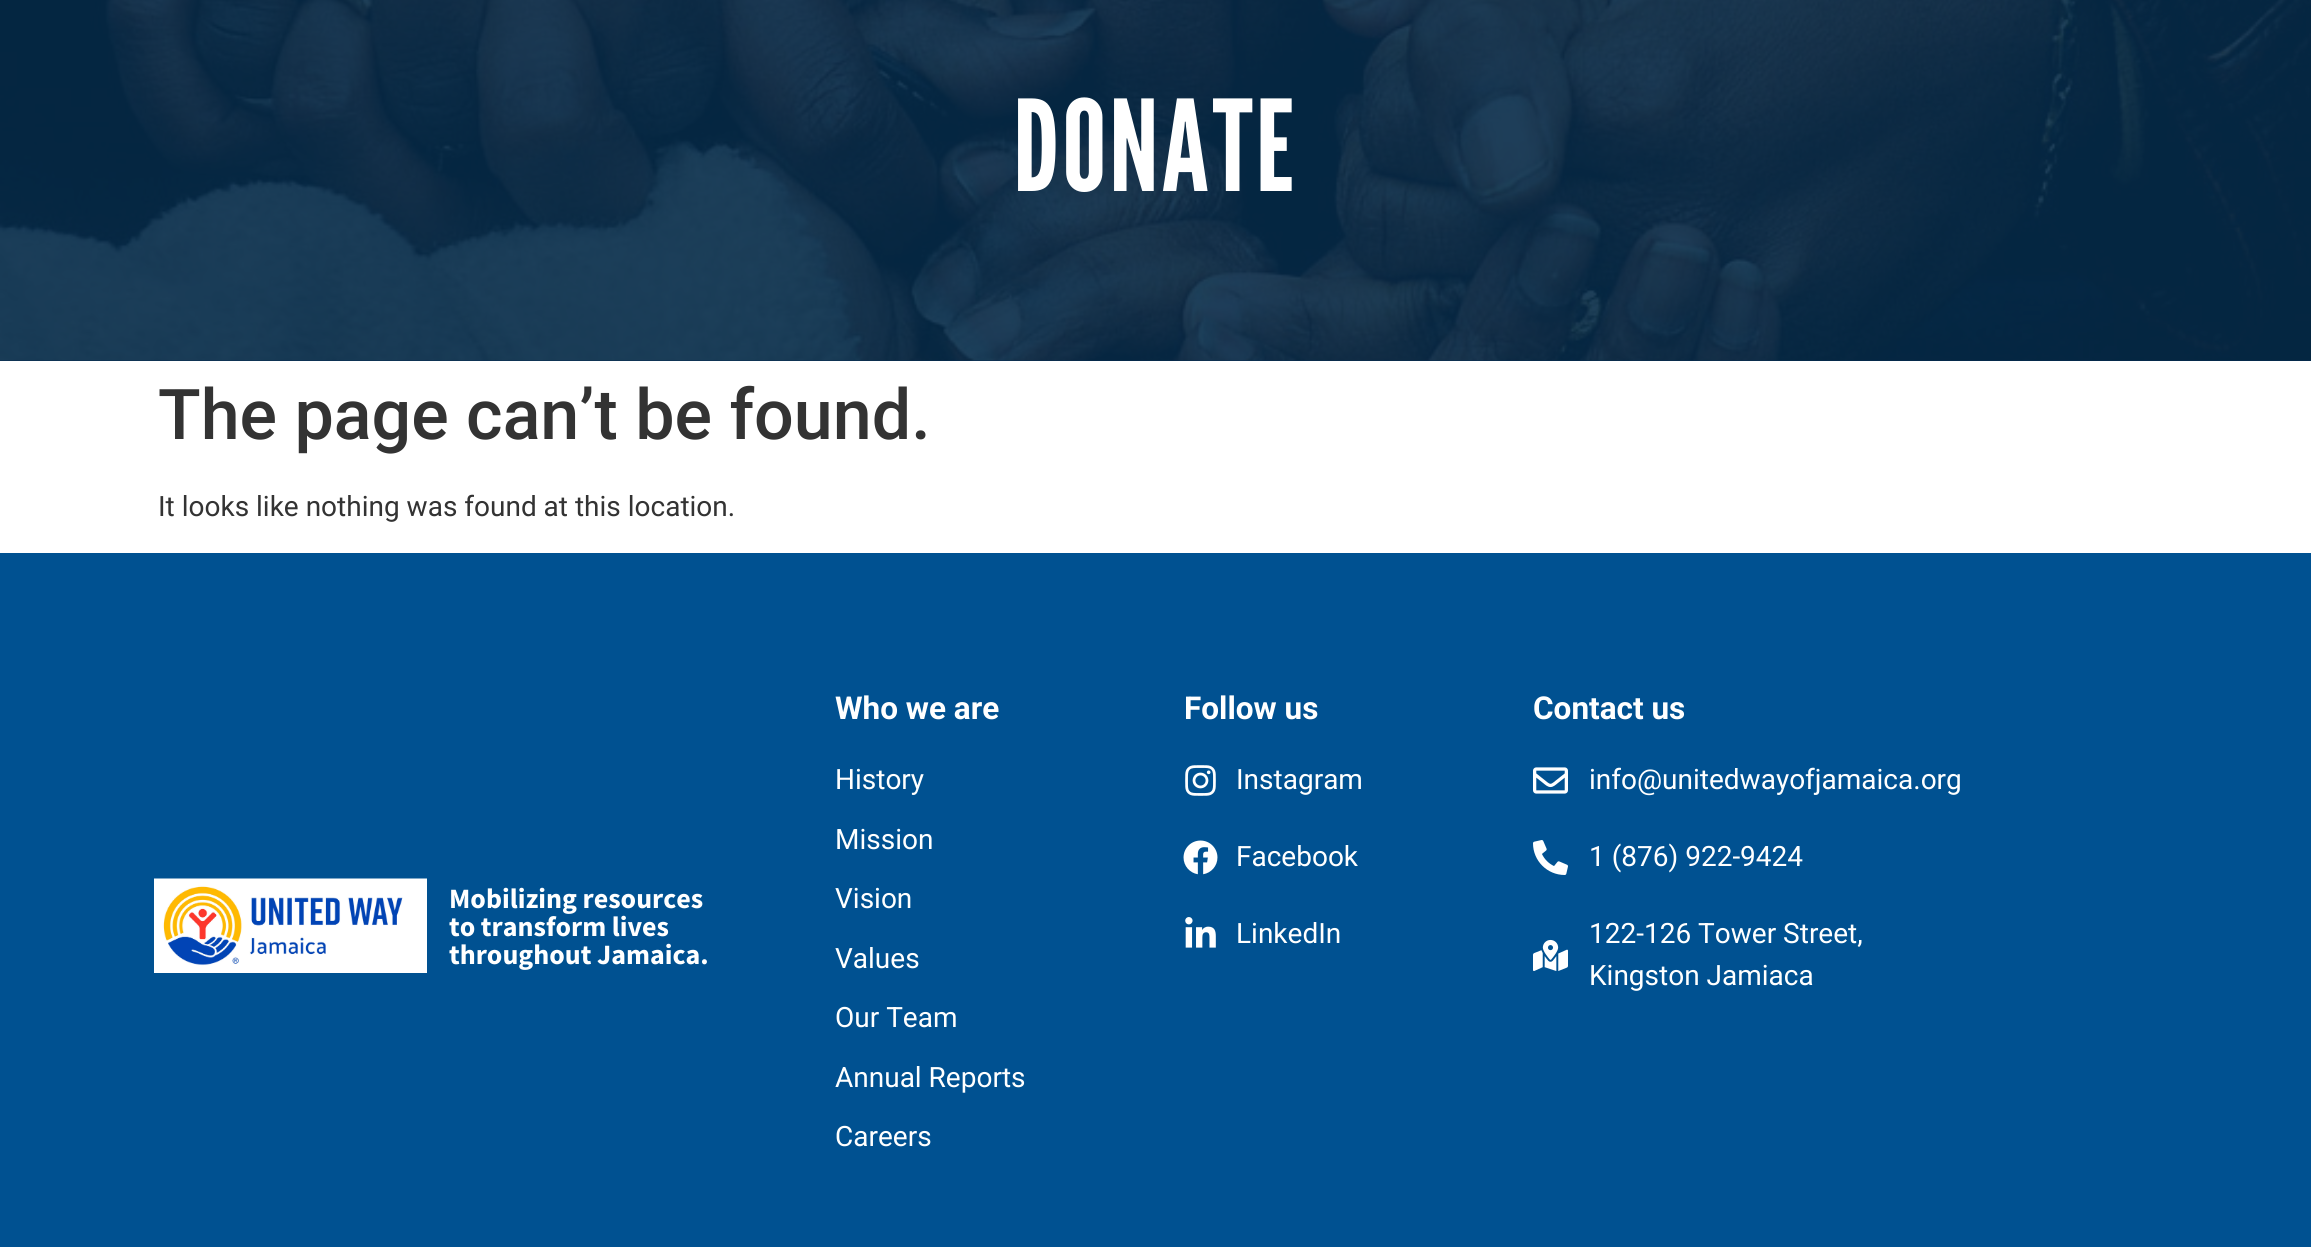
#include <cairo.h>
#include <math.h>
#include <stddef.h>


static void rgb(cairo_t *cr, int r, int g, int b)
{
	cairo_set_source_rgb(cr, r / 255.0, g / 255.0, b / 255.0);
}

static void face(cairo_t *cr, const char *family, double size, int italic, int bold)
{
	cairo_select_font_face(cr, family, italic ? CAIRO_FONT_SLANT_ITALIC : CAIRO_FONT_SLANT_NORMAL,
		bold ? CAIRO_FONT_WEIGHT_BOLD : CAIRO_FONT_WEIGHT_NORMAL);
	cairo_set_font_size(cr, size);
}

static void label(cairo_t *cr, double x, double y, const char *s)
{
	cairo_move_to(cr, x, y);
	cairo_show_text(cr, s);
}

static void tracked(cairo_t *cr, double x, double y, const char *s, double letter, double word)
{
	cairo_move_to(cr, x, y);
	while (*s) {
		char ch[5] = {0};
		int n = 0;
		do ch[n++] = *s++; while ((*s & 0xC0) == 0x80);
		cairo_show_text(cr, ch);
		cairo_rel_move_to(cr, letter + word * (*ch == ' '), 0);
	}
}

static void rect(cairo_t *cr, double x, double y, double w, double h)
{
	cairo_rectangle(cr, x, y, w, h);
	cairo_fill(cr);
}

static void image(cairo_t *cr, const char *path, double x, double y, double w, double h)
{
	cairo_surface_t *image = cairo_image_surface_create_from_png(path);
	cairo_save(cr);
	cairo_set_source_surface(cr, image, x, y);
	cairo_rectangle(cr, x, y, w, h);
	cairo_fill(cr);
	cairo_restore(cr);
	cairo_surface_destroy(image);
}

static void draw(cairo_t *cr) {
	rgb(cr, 255, 255, 255);
	cairo_paint(cr);
	rgb(cr, 5, 45, 83);
	rect(cr, 0, 360, 2311, 1);
	image(cr, "image0.png", 0, 0, 2311, 361);
	face(cr, "League Gothic", 126, 0, 0);
	rgb(cr, 255, 255, 255);
	tracked(cr, 1013, 191, "DONATE", 2, 0);
	face(cr, "Roboto Medium", 70, 0, 0);
	rgb(cr, 51, 51, 51);
	label(cr, 158, 439, "The page can’t be found.");
	face(cr, "Roboto", 28, 0, 0);
	label(cr, 158, 516, "It looks like nothing was found at this location.");
	rgb(cr, 0, 81, 145);
	rect(cr, 0, 553, 2311, 694);
	image(cr, "image1.png", 154, 878, 273, 95);
	face(cr, "Source Sans Pro", 28, 0, 1);
	rgb(cr, 255, 255, 255);
	label(cr, 449, 908, "Mobilizing resources");
	label(cr, 449, 936, "to transform lives");
	label(cr, 449, 964, "throughout Jamaica.");
	face(cr, "Roboto", 31.5, 0, 1);
	label(cr, 835, 719, "Who we are");
	face(cr, "Roboto", 28, 0, 0);
	label(cr, 835, 789, "History");
	label(cr, 835, 849, "Mission");
	label(cr, 835, 908, "Vision");
	label(cr, 835, 968, "Values");
	label(cr, 835, 1027, "Our Team");
	label(cr, 835, 1087, "Annual Reports");
	label(cr, 835, 1146, "Careers");
	face(cr, "Roboto", 31.5, 0, 1);
	label(cr, 1184, 719, "Follow us");
	image(cr, "image2.png", 1185, 765, 31, 31);
	face(cr, "Roboto", 28, 0, 0);
	label(cr, 1236, 789, "Instagram");
	image(cr, "image3.png", 1183, 840, 35, 35);
	label(cr, 1236, 866, "Facebook");
	image(cr, "image4.png", 1185, 917, 31, 31);
	label(cr, 1236, 943, "LinkedIn");
	face(cr, "Roboto", 31.5, 0, 1);
	label(cr, 1533, 719, "Contact us");
	image(cr, "image5.png", 1533, 767, 35, 27);
	face(cr, "Roboto", 28, 0, 0);
	label(cr, 1589, 789, "info@unitedwayofjamaica.org");
	image(cr, "image6.png", 1533, 840, 35, 35);
	label(cr, 1589, 866, "1 (876) 922-9424");
	image(cr, "image7.png", 1533, 939, 35, 32);
	label(cr, 1589, 943, "122-126 Tower Street,");
	label(cr, 1589, 985, "Kingston Jamiaca");
}

int main(void) {
	cairo_surface_t *surface = cairo_image_surface_create(CAIRO_FORMAT_RGB24, 2311, 1247);
	cairo_t *cr = cairo_create(surface);
	cairo_font_options_t *options = cairo_font_options_create();
	cairo_font_options_set_hint_metrics(options, CAIRO_HINT_METRICS_OFF);
	cairo_font_options_set_hint_style(options, CAIRO_HINT_STYLE_NONE);
	cairo_set_font_options(cr, options);
	cairo_set_miter_limit(cr, 4);
	draw(cr);
	cairo_surface_write_to_png(surface, "render.png");
	cairo_font_options_destroy(options);
	cairo_destroy(cr);
	cairo_surface_destroy(surface);
	return 0;
}
